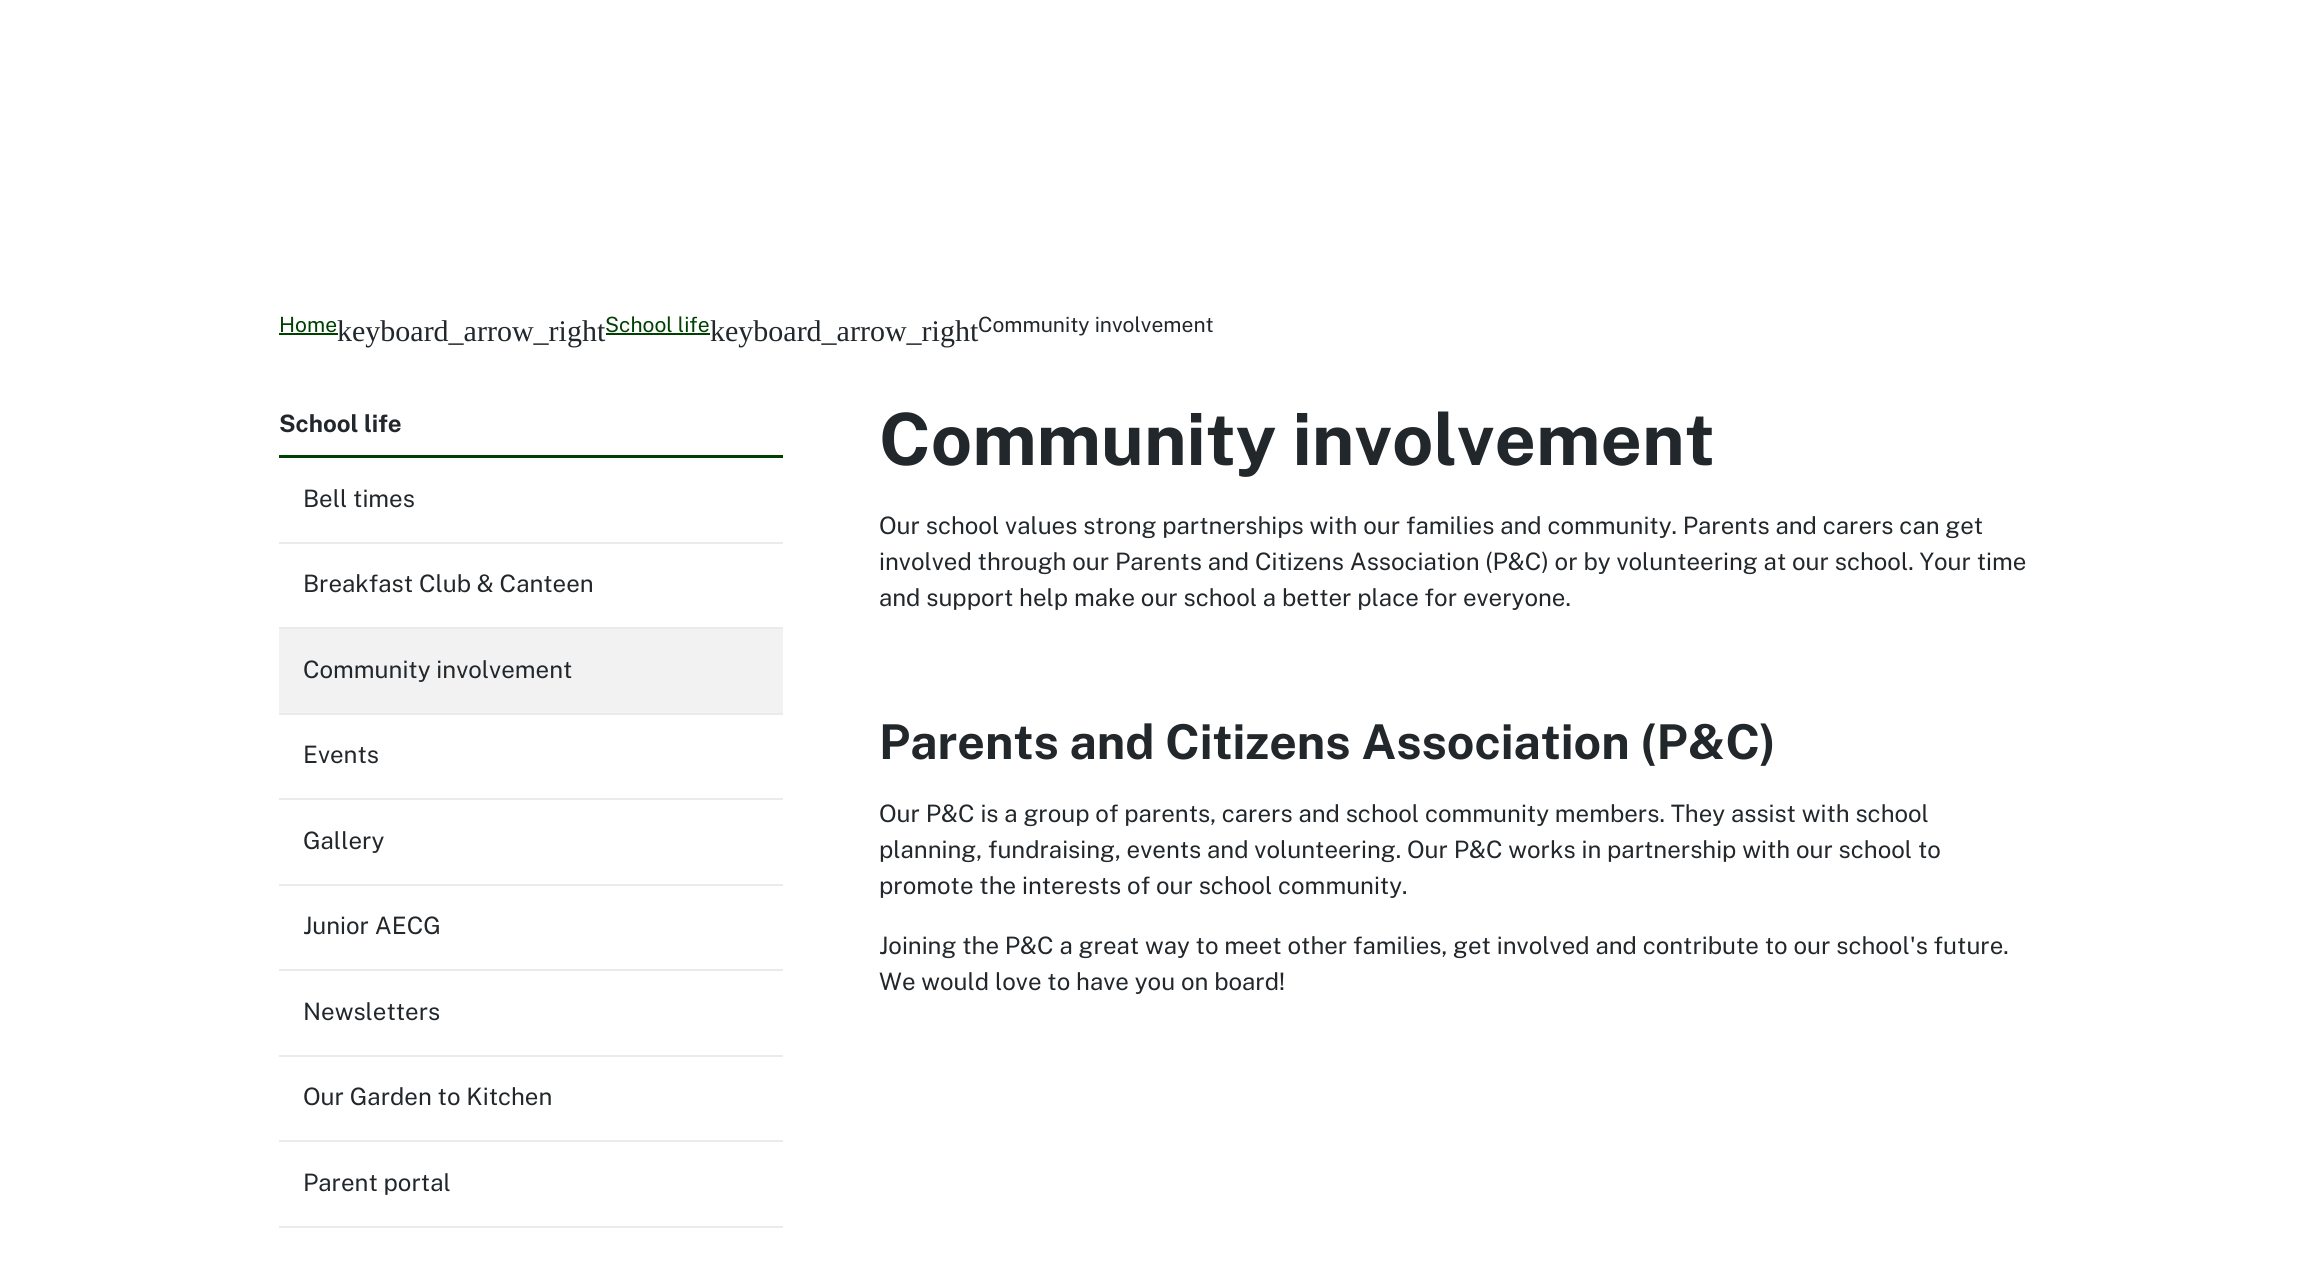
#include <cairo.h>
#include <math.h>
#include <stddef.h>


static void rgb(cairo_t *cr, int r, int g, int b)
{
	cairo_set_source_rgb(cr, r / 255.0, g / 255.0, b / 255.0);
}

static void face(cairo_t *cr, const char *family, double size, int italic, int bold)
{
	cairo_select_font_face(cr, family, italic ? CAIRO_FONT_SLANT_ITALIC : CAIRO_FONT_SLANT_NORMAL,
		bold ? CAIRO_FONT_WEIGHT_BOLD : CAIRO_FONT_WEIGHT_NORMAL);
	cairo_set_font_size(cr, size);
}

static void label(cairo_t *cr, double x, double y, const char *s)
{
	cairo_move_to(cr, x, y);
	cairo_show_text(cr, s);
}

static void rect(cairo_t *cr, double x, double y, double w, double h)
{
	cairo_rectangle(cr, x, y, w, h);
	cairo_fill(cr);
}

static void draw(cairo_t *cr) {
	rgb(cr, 255, 255, 255);
	cairo_paint(cr);
	face(cr, "Public Sans", 21, 0, 0);
	rgb(cr, 0, 64, 0);
	label(cr, 279, 332, "Home");
	rect(cr, 279, 333, 59, 2);
	face(cr, "Liberation Serif", 30, 0, 0);
	rgb(cr, 34, 39, 43);
	label(cr, 337, 341, "keyboard_arrow_right");
	face(cr, "Public Sans", 21, 0, 0);
	rgb(cr, 0, 64, 0);
	label(cr, 605, 332, "School life");
	rect(cr, 606, 333, 104, 2);
	face(cr, "Liberation Serif", 30, 0, 0);
	rgb(cr, 34, 39, 43);
	label(cr, 710, 341, "keyboard_arrow_right");
	face(cr, "Public Sans", 21, 0, 0);
	label(cr, 978, 332, "Community involvement");
	rgb(cr, 0, 64, 0);
	rect(cr, 279, 455, 504, 3);
	face(cr, "Public Sans", 24, 0, 1);
	rgb(cr, 34, 39, 43);
	label(cr, 279, 432, "School life");
	face(cr, "Public Sans", 24, 0, 0);
	label(cr, 303, 507, "Bell times");
	rgb(cr, 235, 235, 235);
	rect(cr, 279, 542, 504, 2);
	rgb(cr, 34, 39, 43);
	label(cr, 303, 592, "Breakfast Club & Canteen");
	rgb(cr, 235, 235, 235);
	rect(cr, 279, 627, 504, 2);
	rgb(cr, 242, 242, 242);
	rect(cr, 279, 629, 504, 84);
	rgb(cr, 34, 39, 43);
	label(cr, 303, 678, "Community involvement");
	rgb(cr, 235, 235, 235);
	rect(cr, 279, 713, 504, 2);
	rgb(cr, 34, 39, 43);
	label(cr, 303, 763, "Events");
	rgb(cr, 235, 235, 235);
	rect(cr, 279, 798, 504, 2);
	rgb(cr, 34, 39, 43);
	label(cr, 303, 849, "Gallery");
	rgb(cr, 235, 235, 235);
	rect(cr, 279, 884, 504, 2);
	rgb(cr, 34, 39, 43);
	label(cr, 303, 934, "Junior AECG");
	rgb(cr, 235, 235, 235);
	rect(cr, 279, 969, 504, 2);
	rgb(cr, 34, 39, 43);
	label(cr, 303, 1020, "Newsletters");
	rgb(cr, 235, 235, 235);
	rect(cr, 279, 1055, 504, 2);
	rgb(cr, 34, 39, 43);
	label(cr, 303, 1105, "Our Garden to Kitchen");
	rgb(cr, 235, 235, 235);
	rect(cr, 279, 1140, 504, 2);
	rgb(cr, 34, 39, 43);
	label(cr, 303, 1191, "Parent portal");
	rgb(cr, 235, 235, 235);
	rect(cr, 279, 1226, 504, 2);
	face(cr, "Public Sans", 72, 0, 1);
	rgb(cr, 34, 39, 43);
	label(cr, 879, 465, "Community involvement");
	face(cr, "Public Sans", 24, 0, 0);
	label(cr, 879, 534, "Our school values strong partnerships with our families and community. Parents and carers can get");
	label(cr, 879, 570, "involved through our Parents and Citizens Association (P&C) or by volunteering at our school. Your time");
	label(cr, 879, 606, "and support help make our school a better place for everyone.");
	face(cr, "Public Sans", 48, 0, 1);
	label(cr, 879, 759, "Parents and Citizens Association (P&C)");
	face(cr, "Public Sans", 24, 0, 0);
	label(cr, 879, 822, "Our P&C is a group of parents, carers and school community members. They assist with school");
	label(cr, 879, 858, "planning, fundraising, events and volunteering. Our P&C works in partnership with our school to");
	label(cr, 879, 894, "promote the interests of our school community.");
	label(cr, 879, 954, "Joining the P&C a great way to meet other families, get involved and contribute to our school's future.");
	label(cr, 879, 990, "We would love to have you on board!");
}

int main(void) {
	cairo_surface_t *surface = cairo_image_surface_create(CAIRO_FORMAT_RGB24, 2310, 1270);
	cairo_t *cr = cairo_create(surface);
	cairo_font_options_t *options = cairo_font_options_create();
	cairo_font_options_set_hint_metrics(options, CAIRO_HINT_METRICS_OFF);
	cairo_font_options_set_hint_style(options, CAIRO_HINT_STYLE_NONE);
	cairo_set_font_options(cr, options);
	cairo_set_miter_limit(cr, 4);
	draw(cr);
	cairo_surface_write_to_png(surface, "render.png");
	cairo_font_options_destroy(options);
	cairo_destroy(cr);
	cairo_surface_destroy(surface);
	return 0;
}
